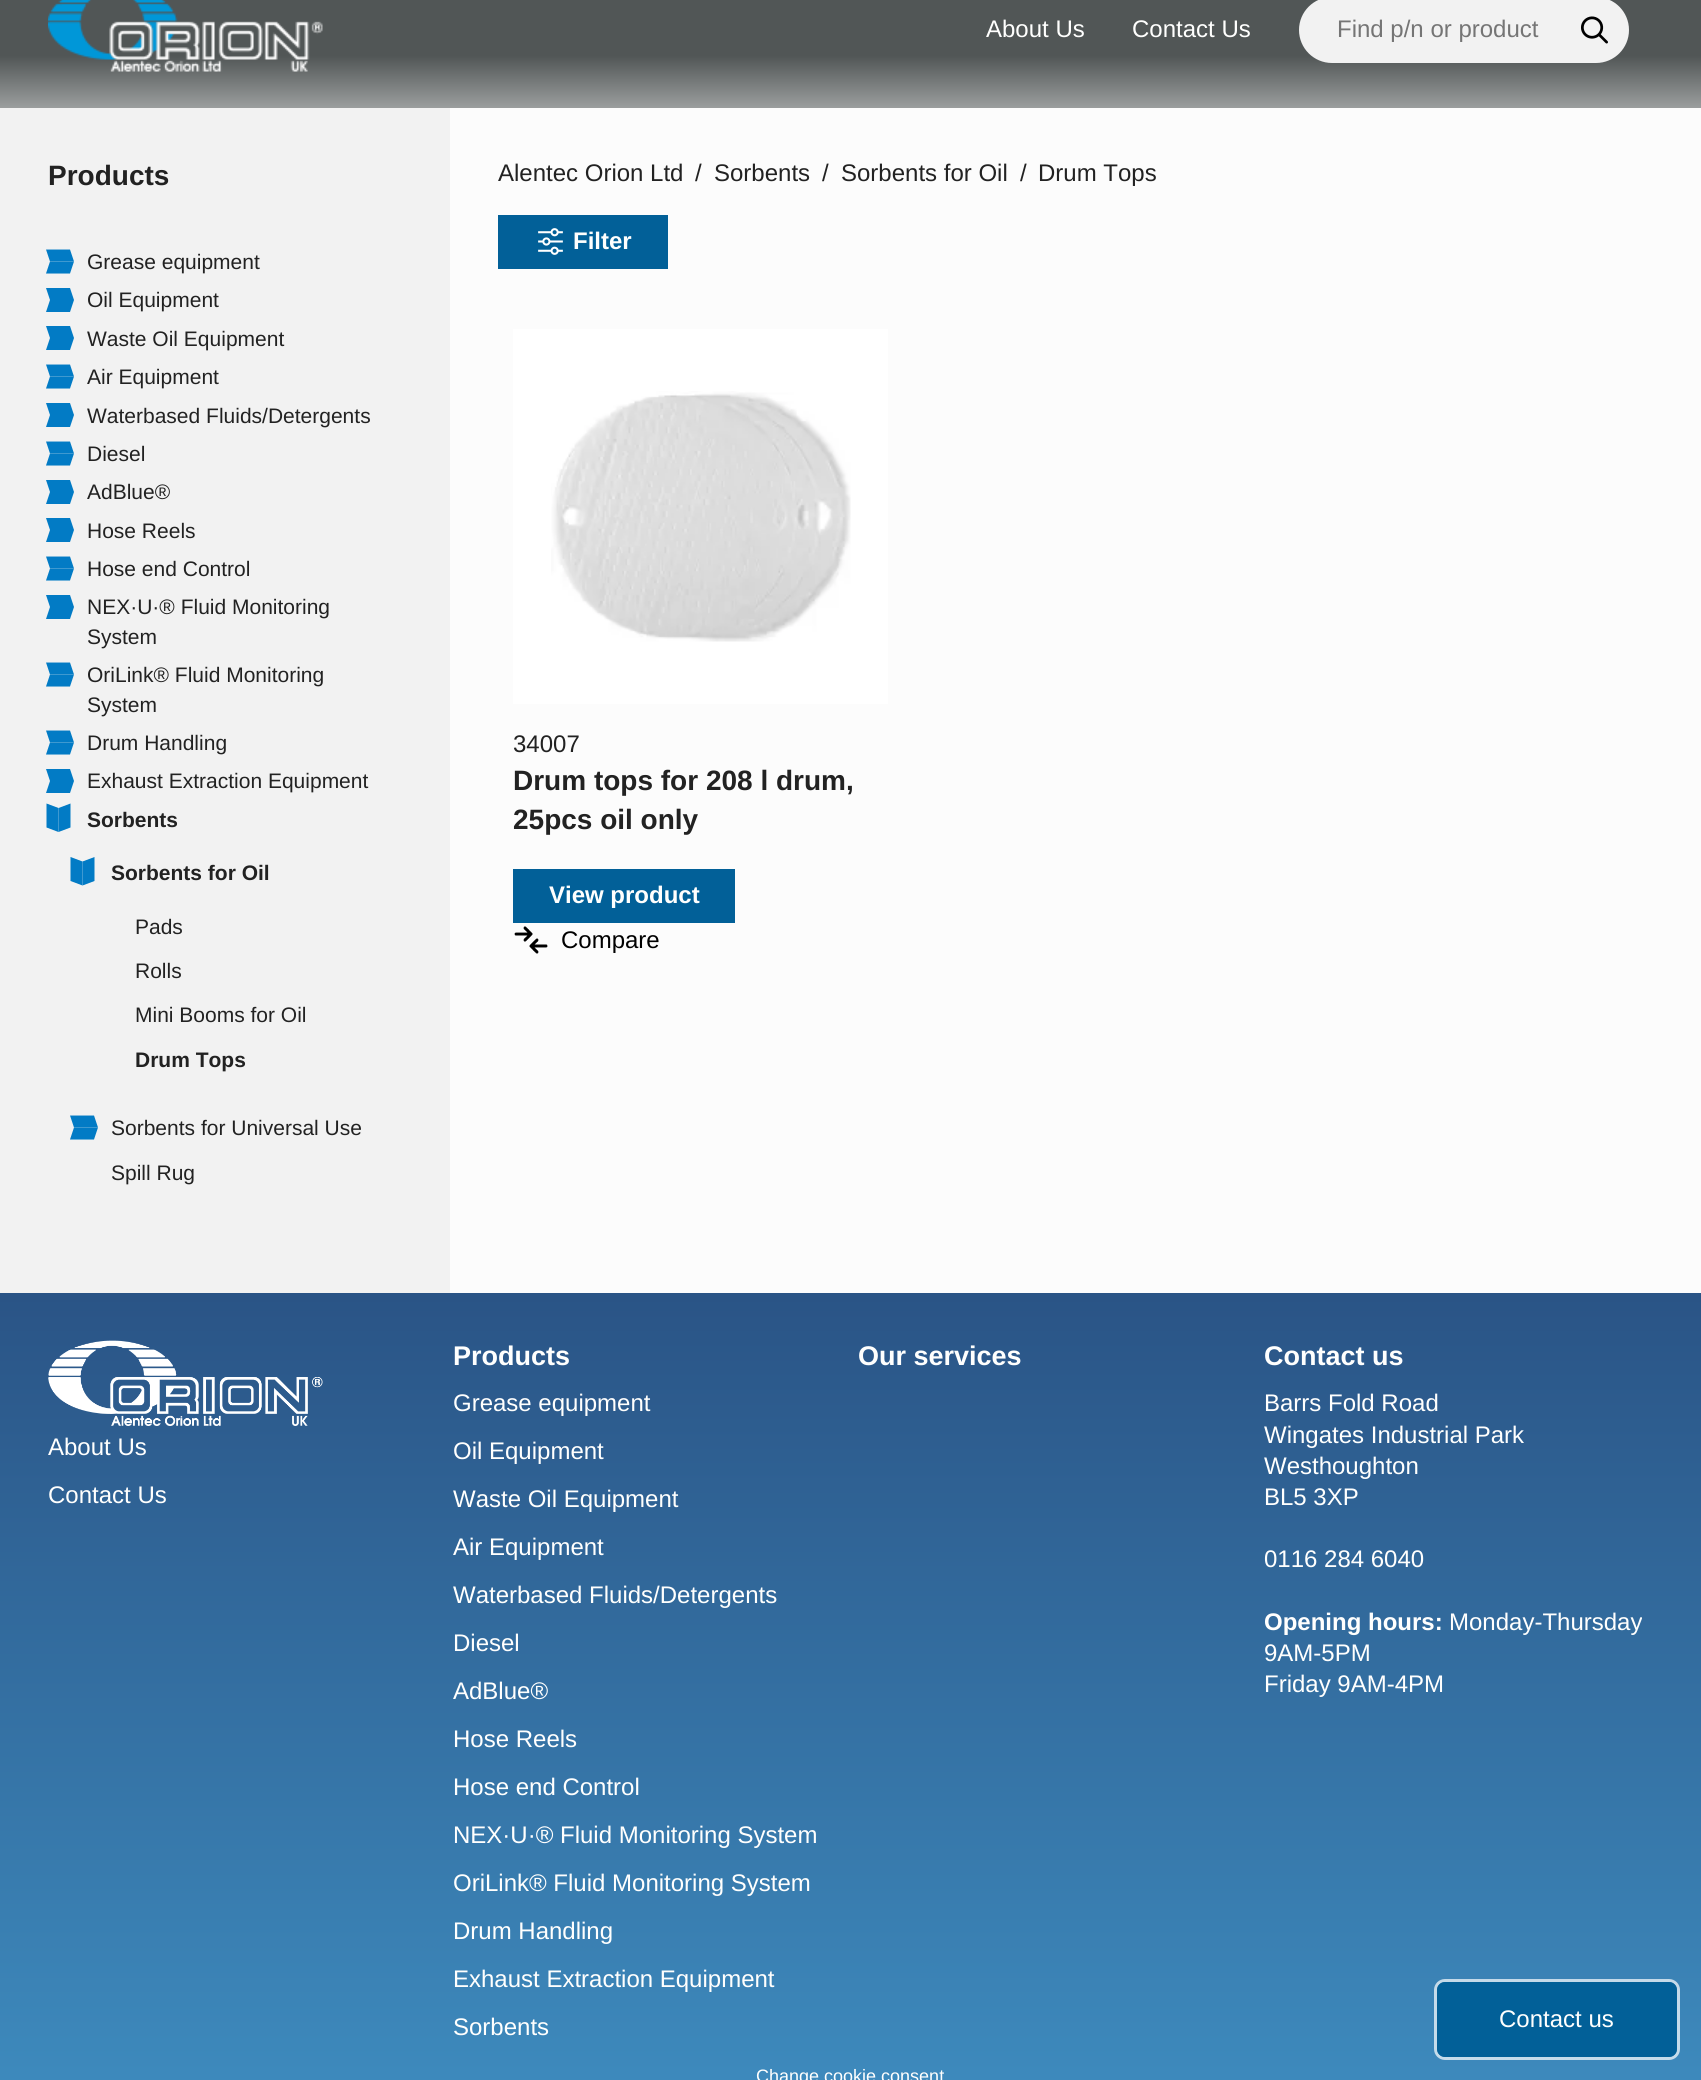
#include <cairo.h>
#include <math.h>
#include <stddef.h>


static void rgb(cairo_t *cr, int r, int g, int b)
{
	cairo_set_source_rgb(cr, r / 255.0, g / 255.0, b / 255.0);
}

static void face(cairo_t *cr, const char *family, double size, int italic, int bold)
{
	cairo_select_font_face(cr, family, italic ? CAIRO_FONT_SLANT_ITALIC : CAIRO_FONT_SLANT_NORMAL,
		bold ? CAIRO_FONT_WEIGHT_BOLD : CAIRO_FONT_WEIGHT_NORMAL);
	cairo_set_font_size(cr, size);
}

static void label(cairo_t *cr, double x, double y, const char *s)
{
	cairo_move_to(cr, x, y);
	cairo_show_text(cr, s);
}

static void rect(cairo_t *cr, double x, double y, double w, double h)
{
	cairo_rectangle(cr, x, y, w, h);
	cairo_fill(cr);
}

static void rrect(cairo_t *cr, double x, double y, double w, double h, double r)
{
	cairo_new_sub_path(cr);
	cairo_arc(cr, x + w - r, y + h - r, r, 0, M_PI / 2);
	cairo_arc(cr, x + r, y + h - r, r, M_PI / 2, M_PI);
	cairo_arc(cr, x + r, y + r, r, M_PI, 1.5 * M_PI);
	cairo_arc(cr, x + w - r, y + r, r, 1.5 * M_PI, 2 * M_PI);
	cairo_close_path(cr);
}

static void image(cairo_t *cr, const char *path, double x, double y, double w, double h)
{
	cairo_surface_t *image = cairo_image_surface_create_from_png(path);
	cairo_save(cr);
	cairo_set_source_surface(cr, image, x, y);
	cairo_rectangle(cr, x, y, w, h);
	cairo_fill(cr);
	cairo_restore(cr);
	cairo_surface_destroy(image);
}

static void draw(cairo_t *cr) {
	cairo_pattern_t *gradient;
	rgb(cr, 252, 252, 252);
	cairo_paint(cr);
	gradient = cairo_pattern_create_linear(851, -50, 851, 108);
	cairo_pattern_add_color_stop_rgba(gradient, 0.67, 0.318, 0.337, 0.337, 1);
	cairo_pattern_add_color_stop_rgba(gradient, 1, 0.608, 0.62, 0.62, 1);
	cairo_set_source(cr, gradient);
	cairo_pattern_destroy(gradient);
	rect(cr, 0, 0, 1701, 108);
	image(cr, "image0.png", 48, 0, 275, 72);
	face(cr, "Liberation Sans", 24, 0, 0);
	rgb(cr, 255, 255, 254);
	label(cr, 986, 37, "About Us");
	label(cr, 1132, 37, "Contact Us");
	rgb(cr, 242, 242, 242);
	rrect(cr, 1300, -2, 328, 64, 32);
	cairo_fill_preserve(cr);
	cairo_stroke(cr);
	rgb(cr, 117, 117, 117);
	label(cr, 1337, 37, "Find p/n or product");
	image(cr, "image1.png", 1581, 16, 27, 28);
	rgb(cr, 242, 242, 242);
	rect(cr, 0, 108, 450, 1185);
	face(cr, "Liberation Sans", 28, 0, 1);
	rgb(cr, 34, 34, 34);
	label(cr, 48, 185, "Products");
	rgb(cr, 2, 123, 197);
	cairo_new_path(cr);
	cairo_move_to(cr, 50, 261.5);
	cairo_line_to(cr, 74, 261.5);
	cairo_line_to(cr, 70, 273.5);
	cairo_line_to(cr, 46, 273.5);
	cairo_close_path(cr);
	cairo_fill(cr);
	cairo_new_path(cr);
	cairo_move_to(cr, 46, 249.5);
	cairo_line_to(cr, 70, 249.5);
	cairo_line_to(cr, 74, 261.5);
	cairo_line_to(cr, 50, 261.5);
	cairo_close_path(cr);
	cairo_fill(cr);
	face(cr, "Liberation Sans", 21, 0, 0);
	rgb(cr, 34, 34, 34);
	label(cr, 87, 269, "Grease equipment");
	rgb(cr, 2, 123, 197);
	cairo_new_path(cr);
	cairo_move_to(cr, 50, 300);
	cairo_line_to(cr, 74, 300);
	cairo_line_to(cr, 70, 312);
	cairo_line_to(cr, 46, 312);
	cairo_close_path(cr);
	cairo_move_to(cr, 46, 288);
	cairo_line_to(cr, 70, 288);
	cairo_line_to(cr, 74, 300);
	cairo_line_to(cr, 50, 300);
	cairo_close_path(cr);
	cairo_fill(cr);
	rgb(cr, 34, 34, 34);
	label(cr, 87, 307, "Oil Equipment");
	rgb(cr, 2, 123, 197);
	cairo_new_path(cr);
	cairo_move_to(cr, 50, 338);
	cairo_line_to(cr, 74, 338);
	cairo_line_to(cr, 70, 350);
	cairo_line_to(cr, 46, 350);
	cairo_close_path(cr);
	cairo_move_to(cr, 46, 326);
	cairo_line_to(cr, 70, 326);
	cairo_line_to(cr, 74, 338);
	cairo_line_to(cr, 50, 338);
	cairo_close_path(cr);
	cairo_fill(cr);
	rgb(cr, 34, 34, 34);
	label(cr, 87, 346, "Waste Oil Equipment");
	rgb(cr, 2, 123, 197);
	cairo_new_path(cr);
	cairo_move_to(cr, 50, 376.5);
	cairo_line_to(cr, 74, 376.5);
	cairo_line_to(cr, 70, 388.5);
	cairo_line_to(cr, 46, 388.5);
	cairo_close_path(cr);
	cairo_fill(cr);
	cairo_new_path(cr);
	cairo_move_to(cr, 46, 364.5);
	cairo_line_to(cr, 70, 364.5);
	cairo_line_to(cr, 74, 376.5);
	cairo_line_to(cr, 50, 376.5);
	cairo_close_path(cr);
	cairo_fill(cr);
	rgb(cr, 34, 34, 34);
	label(cr, 87, 384, "Air Equipment");
	rgb(cr, 2, 123, 197);
	cairo_new_path(cr);
	cairo_move_to(cr, 50, 415);
	cairo_line_to(cr, 74, 415);
	cairo_line_to(cr, 70, 427);
	cairo_line_to(cr, 46, 427);
	cairo_close_path(cr);
	cairo_move_to(cr, 46, 403);
	cairo_line_to(cr, 70, 403);
	cairo_line_to(cr, 74, 415);
	cairo_line_to(cr, 50, 415);
	cairo_close_path(cr);
	cairo_fill(cr);
	rgb(cr, 34, 34, 34);
	label(cr, 87, 423, "Waterbased Fluids/Detergents");
	rgb(cr, 2, 123, 197);
	cairo_new_path(cr);
	cairo_move_to(cr, 50, 453.5);
	cairo_line_to(cr, 74, 453.5);
	cairo_line_to(cr, 70, 465.5);
	cairo_line_to(cr, 46, 465.5);
	cairo_close_path(cr);
	cairo_fill(cr);
	cairo_new_path(cr);
	cairo_move_to(cr, 46, 441.5);
	cairo_line_to(cr, 70, 441.5);
	cairo_line_to(cr, 74, 453.5);
	cairo_line_to(cr, 50, 453.5);
	cairo_close_path(cr);
	cairo_fill(cr);
	rgb(cr, 34, 34, 34);
	label(cr, 87, 461, "Diesel");
	rgb(cr, 2, 123, 197);
	cairo_new_path(cr);
	cairo_move_to(cr, 50, 492);
	cairo_line_to(cr, 74, 492);
	cairo_line_to(cr, 70, 504);
	cairo_line_to(cr, 46, 504);
	cairo_close_path(cr);
	cairo_move_to(cr, 46, 480);
	cairo_line_to(cr, 70, 480);
	cairo_line_to(cr, 74, 492);
	cairo_line_to(cr, 50, 492);
	cairo_close_path(cr);
	cairo_fill(cr);
	rgb(cr, 34, 34, 34);
	label(cr, 87, 499, "AdBlue®");
	rgb(cr, 2, 123, 197);
	cairo_new_path(cr);
	cairo_move_to(cr, 50, 530);
	cairo_line_to(cr, 74, 530);
	cairo_line_to(cr, 70, 542);
	cairo_line_to(cr, 46, 542);
	cairo_close_path(cr);
	cairo_move_to(cr, 46, 518);
	cairo_line_to(cr, 70, 518);
	cairo_line_to(cr, 74, 530);
	cairo_line_to(cr, 50, 530);
	cairo_close_path(cr);
	cairo_fill(cr);
	rgb(cr, 34, 34, 34);
	label(cr, 87, 538, "Hose Reels");
	rgb(cr, 2, 123, 197);
	cairo_new_path(cr);
	cairo_move_to(cr, 50, 568.5);
	cairo_line_to(cr, 74, 568.5);
	cairo_line_to(cr, 70, 580.5);
	cairo_line_to(cr, 46, 580.5);
	cairo_close_path(cr);
	cairo_fill(cr);
	cairo_new_path(cr);
	cairo_move_to(cr, 46, 556.5);
	cairo_line_to(cr, 70, 556.5);
	cairo_line_to(cr, 74, 568.5);
	cairo_line_to(cr, 50, 568.5);
	cairo_close_path(cr);
	cairo_fill(cr);
	rgb(cr, 34, 34, 34);
	label(cr, 87, 576, "Hose end Control");
	rgb(cr, 2, 123, 197);
	cairo_new_path(cr);
	cairo_move_to(cr, 50, 607);
	cairo_line_to(cr, 74, 607);
	cairo_line_to(cr, 70, 619);
	cairo_line_to(cr, 46, 619);
	cairo_close_path(cr);
	cairo_move_to(cr, 46, 595);
	cairo_line_to(cr, 70, 595);
	cairo_line_to(cr, 74, 607);
	cairo_line_to(cr, 50, 607);
	cairo_close_path(cr);
	cairo_fill(cr);
	rgb(cr, 34, 34, 34);
	label(cr, 87, 614, "NEX·U·® Fluid Monitoring");
	label(cr, 87, 644, "System");
	rgb(cr, 2, 123, 197);
	cairo_new_path(cr);
	cairo_move_to(cr, 50, 674.5);
	cairo_line_to(cr, 74, 674.5);
	cairo_line_to(cr, 70, 686.5);
	cairo_line_to(cr, 46, 686.5);
	cairo_close_path(cr);
	cairo_fill(cr);
	cairo_new_path(cr);
	cairo_move_to(cr, 46, 662.5);
	cairo_line_to(cr, 70, 662.5);
	cairo_line_to(cr, 74, 674.5);
	cairo_line_to(cr, 50, 674.5);
	cairo_close_path(cr);
	cairo_fill(cr);
	rgb(cr, 34, 34, 34);
	label(cr, 87, 682, "OriLink® Fluid Monitoring");
	label(cr, 87, 712, "System");
	rgb(cr, 2, 123, 197);
	cairo_new_path(cr);
	cairo_move_to(cr, 50, 742.5);
	cairo_line_to(cr, 74, 742.5);
	cairo_line_to(cr, 70, 754.5);
	cairo_line_to(cr, 46, 754.5);
	cairo_close_path(cr);
	cairo_fill(cr);
	cairo_new_path(cr);
	cairo_move_to(cr, 46, 730.5);
	cairo_line_to(cr, 70, 730.5);
	cairo_line_to(cr, 74, 742.5);
	cairo_line_to(cr, 50, 742.5);
	cairo_close_path(cr);
	cairo_fill(cr);
	rgb(cr, 34, 34, 34);
	label(cr, 87, 750, "Drum Handling");
	rgb(cr, 2, 123, 197);
	cairo_new_path(cr);
	cairo_move_to(cr, 50, 781);
	cairo_line_to(cr, 74, 781);
	cairo_line_to(cr, 70, 793);
	cairo_line_to(cr, 46, 793);
	cairo_close_path(cr);
	cairo_move_to(cr, 46, 769);
	cairo_line_to(cr, 70, 769);
	cairo_line_to(cr, 74, 781);
	cairo_line_to(cr, 50, 781);
	cairo_close_path(cr);
	cairo_fill(cr);
	rgb(cr, 34, 34, 34);
	label(cr, 87, 788, "Exhaust Extraction Equipment");
	rgb(cr, 2, 123, 197);
	cairo_new_path(cr);
	cairo_move_to(cr, 58.5, 808);
	cairo_line_to(cr, 58.5, 832);
	cairo_line_to(cr, 46.5, 827.5);
	cairo_line_to(cr, 46.5, 803.5);
	cairo_close_path(cr);
	cairo_fill(cr);
	cairo_new_path(cr);
	cairo_move_to(cr, 70.5, 803.5);
	cairo_line_to(cr, 70.5, 827.5);
	cairo_line_to(cr, 58.5, 832);
	cairo_line_to(cr, 58.5, 808);
	cairo_close_path(cr);
	cairo_fill(cr);
	face(cr, "Liberation Sans", 21, 0, 1);
	rgb(cr, 34, 34, 34);
	label(cr, 87, 827, "Sorbents");
	rgb(cr, 2, 123, 197);
	cairo_new_path(cr);
	cairo_move_to(cr, 82.5, 861.5);
	cairo_line_to(cr, 82.5, 885.5);
	cairo_line_to(cr, 70.5, 881);
	cairo_line_to(cr, 70.5, 857);
	cairo_close_path(cr);
	cairo_fill(cr);
	cairo_new_path(cr);
	cairo_move_to(cr, 94.5, 857);
	cairo_line_to(cr, 94.5, 881);
	cairo_line_to(cr, 82.5, 885.5);
	cairo_line_to(cr, 82.5, 861.5);
	cairo_close_path(cr);
	cairo_fill(cr);
	rgb(cr, 34, 34, 34);
	label(cr, 111, 880, "Sorbents for Oil");
	face(cr, "Liberation Sans", 21, 0, 0);
	label(cr, 135, 934, "Pads");
	label(cr, 135, 978, "Rolls");
	label(cr, 135, 1022, "Mini Booms for Oil");
	face(cr, "Liberation Sans", 21, 0, 1);
	label(cr, 135, 1067, "Drum Tops");
	rgb(cr, 2, 123, 197);
	cairo_new_path(cr);
	cairo_move_to(cr, 74, 1127.5);
	cairo_line_to(cr, 98, 1127.5);
	cairo_line_to(cr, 94, 1139.5);
	cairo_line_to(cr, 70, 1139.5);
	cairo_close_path(cr);
	cairo_fill(cr);
	cairo_new_path(cr);
	cairo_move_to(cr, 70, 1115.5);
	cairo_line_to(cr, 94, 1115.5);
	cairo_line_to(cr, 98, 1127.5);
	cairo_line_to(cr, 74, 1127.5);
	cairo_close_path(cr);
	cairo_fill(cr);
	face(cr, "Liberation Sans", 21, 0, 0);
	rgb(cr, 34, 34, 34);
	label(cr, 111, 1135, "Sorbents for Universal Use");
	label(cr, 111, 1180, "Spill Rug");
	face(cr, "Liberation Sans", 24, 0, 0);
	label(cr, 498, 181, "Alentec Orion Ltd");
	label(cr, 695, 181, "/");
	label(cr, 714, 181, "Sorbents");
	label(cr, 822, 181, "/");
	label(cr, 841, 181, "Sorbents for Oil");
	label(cr, 1020, 181, "/");
	label(cr, 1038, 181, "Drum Tops");
	rgb(cr, 2, 96, 152);
	rect(cr, 498, 215, 170, 54);
	image(cr, "image2.png", 538, 228, 25, 27);
	face(cr, "Liberation Sans", 24, 0, 1);
	rgb(cr, 255, 255, 254);
	label(cr, 573, 249, "Filter");
	rgb(cr, 255, 255, 255);
	rect(cr, 513, 329, 375, 375);
	image(cr, "image3.png", 551, 391, 300, 251);
	face(cr, "Liberation Sans", 24, 0, 0);
	rgb(cr, 34, 34, 34);
	label(cr, 513, 752, "34007");
	face(cr, "Liberation Sans", 28, 0, 1);
	label(cr, 513, 790, "Drum tops for 208 l drum,");
	label(cr, 513, 829, "25pcs oil only");
	rgb(cr, 2, 96, 152);
	rect(cr, 513, 869, 222, 54);
	face(cr, "Liberation Sans", 24, 0, 1);
	rgb(cr, 255, 255, 254);
	label(cr, 549, 903, "View product");
	image(cr, "image4.png", 514, 926, 34, 28);
	face(cr, "Liberation Sans", 24, 0, 0);
	rgb(cr, 0, 0, 0);
	label(cr, 561, 948, "Compare");
	gradient = cairo_pattern_create_linear(851, 1293, 851, 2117);
	cairo_pattern_add_color_stop_rgba(gradient, 0, 0.165, 0.329, 0.525, 1);
	cairo_pattern_add_color_stop_rgba(gradient, 1, 0.243, 0.549, 0.749, 1);
	cairo_set_source(cr, gradient);
	cairo_pattern_destroy(gradient);
	rect(cr, 0, 1293, 1701, 787);
	image(cr, "image5.png", 48, 1340, 275, 86);
	rgb(cr, 255, 255, 254);
	label(cr, 48, 1455, "About Us");
	label(cr, 48, 1503, "Contact Us");
	face(cr, "Liberation Sans", 27, 0, 1);
	label(cr, 453, 1365, "Products");
	face(cr, "Liberation Sans", 24, 0, 0);
	label(cr, 453, 1411, "Grease equipment");
	label(cr, 453, 1459, "Oil Equipment");
	label(cr, 453, 1507, "Waste Oil Equipment");
	label(cr, 453, 1555, "Air Equipment");
	label(cr, 453, 1603, "Waterbased Fluids/Detergents");
	label(cr, 453, 1651, "Diesel");
	label(cr, 453, 1699, "AdBlue®");
	label(cr, 453, 1747, "Hose Reels");
	label(cr, 453, 1795, "Hose end Control");
	label(cr, 453, 1843, "NEX·U·® Fluid Monitoring System");
	label(cr, 453, 1891, "OriLink® Fluid Monitoring System");
	label(cr, 453, 1939, "Drum Handling");
	label(cr, 453, 1987, "Exhaust Extraction Equipment");
	label(cr, 453, 2035, "Sorbents");
	face(cr, "Liberation Sans", 27, 0, 1);
	label(cr, 858, 1365, "Our services");
	label(cr, 1264, 1365, "Contact us");
	face(cr, "Liberation Sans", 24, 0, 0);
	label(cr, 1264, 1411, "Barrs Fold Road");
	label(cr, 1264, 1443, "Wingates Industrial Park");
	label(cr, 1264, 1474, "Westhoughton");
	label(cr, 1264, 1505, "BL5 3XP");
	label(cr, 1264, 1567, "0116 284 6040");
	face(cr, "Liberation Sans", 24, 0, 1);
	label(cr, 1264, 1630, "Opening hours:");
	face(cr, "Liberation Sans", 24, 0, 0);
	label(cr, 1449, 1630, "Monday-Thursday");
	label(cr, 1264, 1661, "9AM-5PM");
	label(cr, 1264, 1692, "Friday 9AM-4PM");
	face(cr, "Liberation Sans", 18, 0, 0);
	label(cr, 756, 2082, "Change cookie consent");
	rrect(cr, 1435.5, 1980.5, 243, 78, 9.5);
	cairo_set_source_rgba(cr, 1, 1, 1, 0.7);
	cairo_set_line_width(cr, 3);
	cairo_stroke(cr);
	rgb(cr, 2, 96, 152);
	rrect(cr, 1437, 1982, 240, 75, 8);
	cairo_fill(cr);
	face(cr, "Liberation Sans", 24, 0, 0);
	rgb(cr, 255, 255, 254);
	label(cr, 1499, 2027, "Contact us");
}

int main(void) {
	cairo_surface_t *surface = cairo_image_surface_create(CAIRO_FORMAT_RGB24, 1701, 2080);
	cairo_t *cr = cairo_create(surface);
	cairo_font_options_t *options = cairo_font_options_create();
	cairo_font_options_set_hint_metrics(options, CAIRO_HINT_METRICS_OFF);
	cairo_font_options_set_hint_style(options, CAIRO_HINT_STYLE_NONE);
	cairo_set_font_options(cr, options);
	cairo_set_miter_limit(cr, 4);
	draw(cr);
	cairo_surface_write_to_png(surface, "render.png");
	cairo_font_options_destroy(options);
	cairo_destroy(cr);
	cairo_surface_destroy(surface);
	return 0;
}
